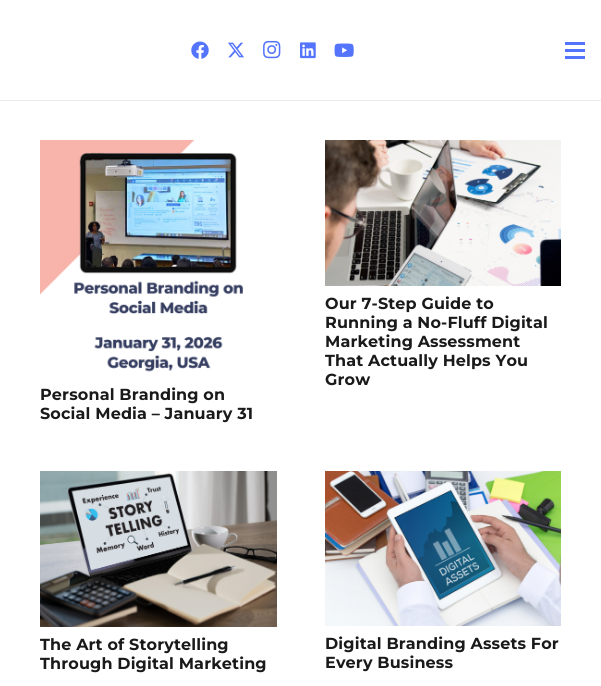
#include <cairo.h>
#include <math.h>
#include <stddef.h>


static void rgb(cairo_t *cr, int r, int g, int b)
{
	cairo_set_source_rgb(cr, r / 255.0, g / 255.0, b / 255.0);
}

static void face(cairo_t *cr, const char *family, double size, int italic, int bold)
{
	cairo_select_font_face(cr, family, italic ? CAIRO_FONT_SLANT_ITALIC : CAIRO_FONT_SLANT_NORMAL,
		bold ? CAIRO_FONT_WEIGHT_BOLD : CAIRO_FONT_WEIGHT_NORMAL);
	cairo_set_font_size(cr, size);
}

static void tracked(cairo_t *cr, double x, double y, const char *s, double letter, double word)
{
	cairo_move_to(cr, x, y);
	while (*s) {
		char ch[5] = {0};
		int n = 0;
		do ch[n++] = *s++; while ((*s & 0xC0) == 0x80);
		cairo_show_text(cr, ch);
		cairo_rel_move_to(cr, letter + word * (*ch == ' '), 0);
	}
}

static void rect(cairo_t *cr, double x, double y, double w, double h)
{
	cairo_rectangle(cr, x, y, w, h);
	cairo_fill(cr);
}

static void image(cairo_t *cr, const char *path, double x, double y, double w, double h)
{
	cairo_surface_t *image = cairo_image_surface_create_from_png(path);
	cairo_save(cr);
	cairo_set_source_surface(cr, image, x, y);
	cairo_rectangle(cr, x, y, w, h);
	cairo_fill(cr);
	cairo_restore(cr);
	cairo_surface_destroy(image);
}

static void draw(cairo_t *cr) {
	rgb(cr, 255, 255, 255);
	cairo_paint(cr);
	rgb(cr, 235, 235, 235);
	rect(cr, 0, 100, 601, 1);
	image(cr, "image0.png", 191, 41, 18, 18);
	image(cr, "image1.png", 228, 42, 16, 16);
	image(cr, "image2.png", 263, 40, 18, 19);
	image(cr, "image3.png", 300, 42, 16, 17);
	image(cr, "image4.png", 334, 43, 20, 14);
	rgb(cr, 84, 117, 251);
	rect(cr, 565, 49, 20, 3);
	rect(cr, 565, 42, 20, 3);
	rect(cr, 565, 56, 20, 3);
	image(cr, "image5.png", 325, 140, 236, 146);
	face(cr, "Montserrat Thin", 16, 0, 0);
	rgb(cr, 26, 26, 26);
	tracked(cr, 325, 309, "Our 7-Step Guide to", 0.15, 0);
	tracked(cr, 325, 328, "Running a No-Fluff Digital", 0.15, 0);
	tracked(cr, 325, 347, "Marketing Assessment", 0.15, 0);
	tracked(cr, 325, 366, "That Actually Helps You", 0.15, 0);
	tracked(cr, 325, 385, "Grow", 0.15, 0);
	image(cr, "image6.png", 40, 140, 203, 232);
	tracked(cr, 40, 400, "Personal Branding on", 0.15, 0);
	tracked(cr, 40, 419, "Social Media – January 31", 0.15, 0);
	image(cr, "image7.png", 40, 471, 237, 156);
	tracked(cr, 40, 650, "The Art of Storytelling", 0.15, 0);
	tracked(cr, 40, 669, "Through Digital Marketing", 0.15, 0);
	image(cr, "image8.png", 325, 471, 236, 155);
	tracked(cr, 325, 649, "Digital Branding Assets For", 0.15, 0);
	tracked(cr, 325, 668, "Every Business", 0.15, 0);
}

int main(void) {
	cairo_surface_t *surface = cairo_image_surface_create(CAIRO_FORMAT_RGB24, 601, 686);
	cairo_t *cr = cairo_create(surface);
	cairo_font_options_t *options = cairo_font_options_create();
	cairo_font_options_set_hint_metrics(options, CAIRO_HINT_METRICS_OFF);
	cairo_font_options_set_hint_style(options, CAIRO_HINT_STYLE_NONE);
	cairo_set_font_options(cr, options);
	cairo_set_miter_limit(cr, 4);
	draw(cr);
	cairo_surface_write_to_png(surface, "render.png");
	cairo_font_options_destroy(options);
	cairo_destroy(cr);
	cairo_surface_destroy(surface);
	return 0;
}
